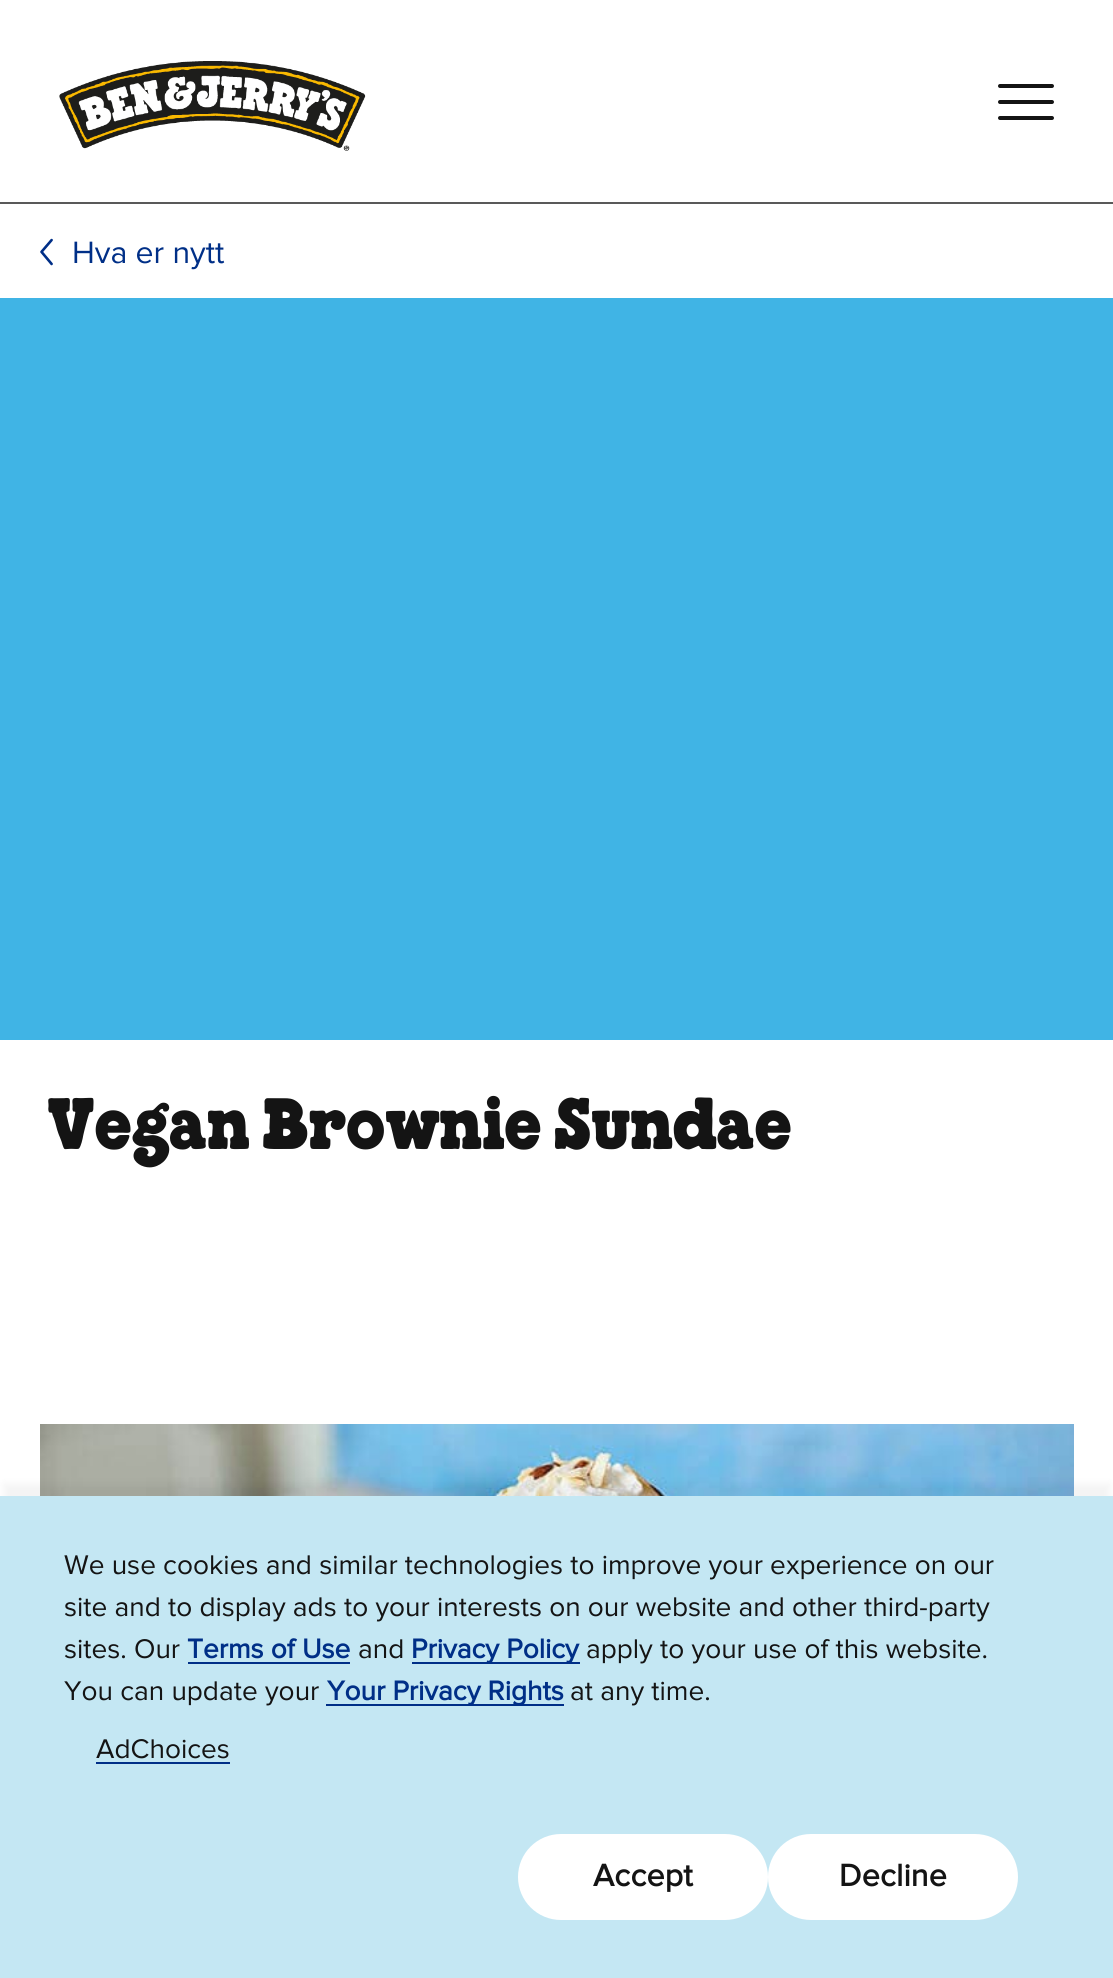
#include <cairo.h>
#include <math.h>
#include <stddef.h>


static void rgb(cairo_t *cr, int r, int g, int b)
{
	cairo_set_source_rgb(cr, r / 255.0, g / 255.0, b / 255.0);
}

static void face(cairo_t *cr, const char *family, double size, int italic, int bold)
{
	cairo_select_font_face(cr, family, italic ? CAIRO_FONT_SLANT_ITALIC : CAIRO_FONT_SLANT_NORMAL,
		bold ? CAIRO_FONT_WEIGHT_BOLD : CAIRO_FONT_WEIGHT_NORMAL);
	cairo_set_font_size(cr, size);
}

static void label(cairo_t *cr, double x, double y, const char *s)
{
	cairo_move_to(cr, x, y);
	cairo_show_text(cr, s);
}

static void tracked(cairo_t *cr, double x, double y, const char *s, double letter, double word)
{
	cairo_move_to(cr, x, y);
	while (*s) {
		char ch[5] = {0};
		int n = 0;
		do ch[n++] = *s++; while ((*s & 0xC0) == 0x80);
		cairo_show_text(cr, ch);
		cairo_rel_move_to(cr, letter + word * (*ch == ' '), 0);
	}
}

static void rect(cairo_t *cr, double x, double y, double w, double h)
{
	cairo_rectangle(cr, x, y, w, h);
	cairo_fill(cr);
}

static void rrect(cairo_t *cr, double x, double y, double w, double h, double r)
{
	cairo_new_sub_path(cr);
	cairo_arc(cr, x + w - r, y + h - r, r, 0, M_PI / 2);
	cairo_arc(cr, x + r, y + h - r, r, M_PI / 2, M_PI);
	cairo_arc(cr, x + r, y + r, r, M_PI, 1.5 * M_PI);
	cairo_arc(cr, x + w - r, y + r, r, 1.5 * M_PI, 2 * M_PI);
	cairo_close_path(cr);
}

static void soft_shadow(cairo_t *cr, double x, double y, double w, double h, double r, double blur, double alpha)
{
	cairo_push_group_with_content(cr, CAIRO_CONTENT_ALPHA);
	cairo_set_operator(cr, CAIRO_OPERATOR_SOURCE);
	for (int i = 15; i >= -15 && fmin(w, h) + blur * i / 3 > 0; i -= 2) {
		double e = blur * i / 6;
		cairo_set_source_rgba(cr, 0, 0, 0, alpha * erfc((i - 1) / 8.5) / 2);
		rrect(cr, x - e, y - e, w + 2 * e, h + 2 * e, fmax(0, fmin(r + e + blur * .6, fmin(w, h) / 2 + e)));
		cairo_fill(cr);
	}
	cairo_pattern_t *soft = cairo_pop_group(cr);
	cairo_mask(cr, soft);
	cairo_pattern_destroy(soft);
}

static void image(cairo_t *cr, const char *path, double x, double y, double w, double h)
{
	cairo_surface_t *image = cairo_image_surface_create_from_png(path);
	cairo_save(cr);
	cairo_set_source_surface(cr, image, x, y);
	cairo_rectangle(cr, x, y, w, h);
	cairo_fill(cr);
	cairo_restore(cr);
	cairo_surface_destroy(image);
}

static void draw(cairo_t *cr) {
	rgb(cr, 255, 255, 255);
	cairo_paint(cr);
	image(cr, "image0.png", 59, 61, 307, 90);
	rgb(cr, 20, 20, 20);
	rrect(cr, 998, 84, 56, 4, 2);
	cairo_fill(cr);
	rrect(cr, 998, 100, 56, 4, 2);
	cairo_fill(cr);
	rrect(cr, 998, 116, 56, 4, 2);
	cairo_fill(cr);
	rgb(cr, 89, 89, 89);
	rect(cr, 0, 202, 1113, 2);
	image(cr, "image1.png", 40, 238, 13, 28);
	face(cr, "Proxima Nova", 32, 0, 0);
	rgb(cr, 0, 47, 135);
	label(cr, 72, 263, "Hva er nytt");
	rgb(cr, 64, 180, 229);
	rect(cr, 0, 298, 1113, 742);
	face(cr, "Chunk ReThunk", 64, 0, 1);
	rgb(cr, 20, 20, 20);
	label(cr, 48, 1149, "Vegan Brownie Sundae");
	image(cr, "image2.png", 40, 1424, 1034, 72);
	rgb(cr, 20, 20, 20);
	soft_shadow(cr, 4, 1484, 1106, 474, 0, 4, 0.05);
	rgb(cr, 196, 231, 243);
	rect(cr, 0, 1496, 1113, 482);
	face(cr, "Proxima Nova", 28, 0, 0);
	rgb(cr, 20, 20, 20);
	label(cr, 64, 1574, "We use cookies and similar technologies to improve your experience on our");
	label(cr, 64, 1616, "site and to display ads to your interests on our website and other third-party");
	label(cr, 64, 1658, "sites. Our");
	face(cr, "Proxima Nova", 28, 0, 1);
	rgb(cr, 0, 47, 135);
	label(cr, 187, 1658, "Terms of Use");
	rect(cr, 188, 1662, 162, 2);
	face(cr, "Proxima Nova", 28, 0, 0);
	rgb(cr, 20, 20, 20);
	label(cr, 358, 1658, "and");
	rgb(cr, 0, 47, 135);
	rect(cr, 412, 1662, 168, 2);
	face(cr, "Proxima Nova", 28, 0, 1);
	label(cr, 411, 1658, "Privacy Policy");
	face(cr, "Proxima Nova", 28, 0, 0);
	rgb(cr, 20, 20, 20);
	label(cr, 586, 1658, "apply to your use of this website.");
	label(cr, 64, 1700, "You can update your");
	rgb(cr, 0, 47, 135);
	rect(cr, 326, 1704, 238, 2);
	face(cr, "Proxima Nova", 28, 0, 1);
	label(cr, 327, 1700, "Your Privacy Rights");
	face(cr, "Proxima Nova", 28, 0, 0);
	rgb(cr, 20, 20, 20);
	label(cr, 570, 1700, "at any time.");
	label(cr, 96, 1758, "AdChoices");
	rgb(cr, 0, 47, 135);
	rect(cr, 96, 1762, 134, 2);
	rgb(cr, 255, 255, 255);
	rrect(cr, 518, 1834, 250, 86, 43);
	cairo_fill(cr);
	face(cr, "Proxima Nova", 32, 0, 1);
	rgb(cr, 20, 20, 20);
	tracked(cr, 593, 1886, "Accept", 0.25, 0);
	rgb(cr, 255, 255, 255);
	rrect(cr, 768, 1834, 250, 86, 43);
	cairo_fill(cr);
	rgb(cr, 20, 20, 20);
	tracked(cr, 839, 1886, "Decline", 0.25, 0);
}

int main(void) {
	cairo_surface_t *surface = cairo_image_surface_create(CAIRO_FORMAT_RGB24, 1113, 1978);
	cairo_t *cr = cairo_create(surface);
	cairo_font_options_t *options = cairo_font_options_create();
	cairo_font_options_set_hint_metrics(options, CAIRO_HINT_METRICS_OFF);
	cairo_font_options_set_hint_style(options, CAIRO_HINT_STYLE_NONE);
	cairo_set_font_options(cr, options);
	cairo_set_miter_limit(cr, 4);
	draw(cr);
	cairo_surface_write_to_png(surface, "render.png");
	cairo_font_options_destroy(options);
	cairo_destroy(cr);
	cairo_surface_destroy(surface);
	return 0;
}
